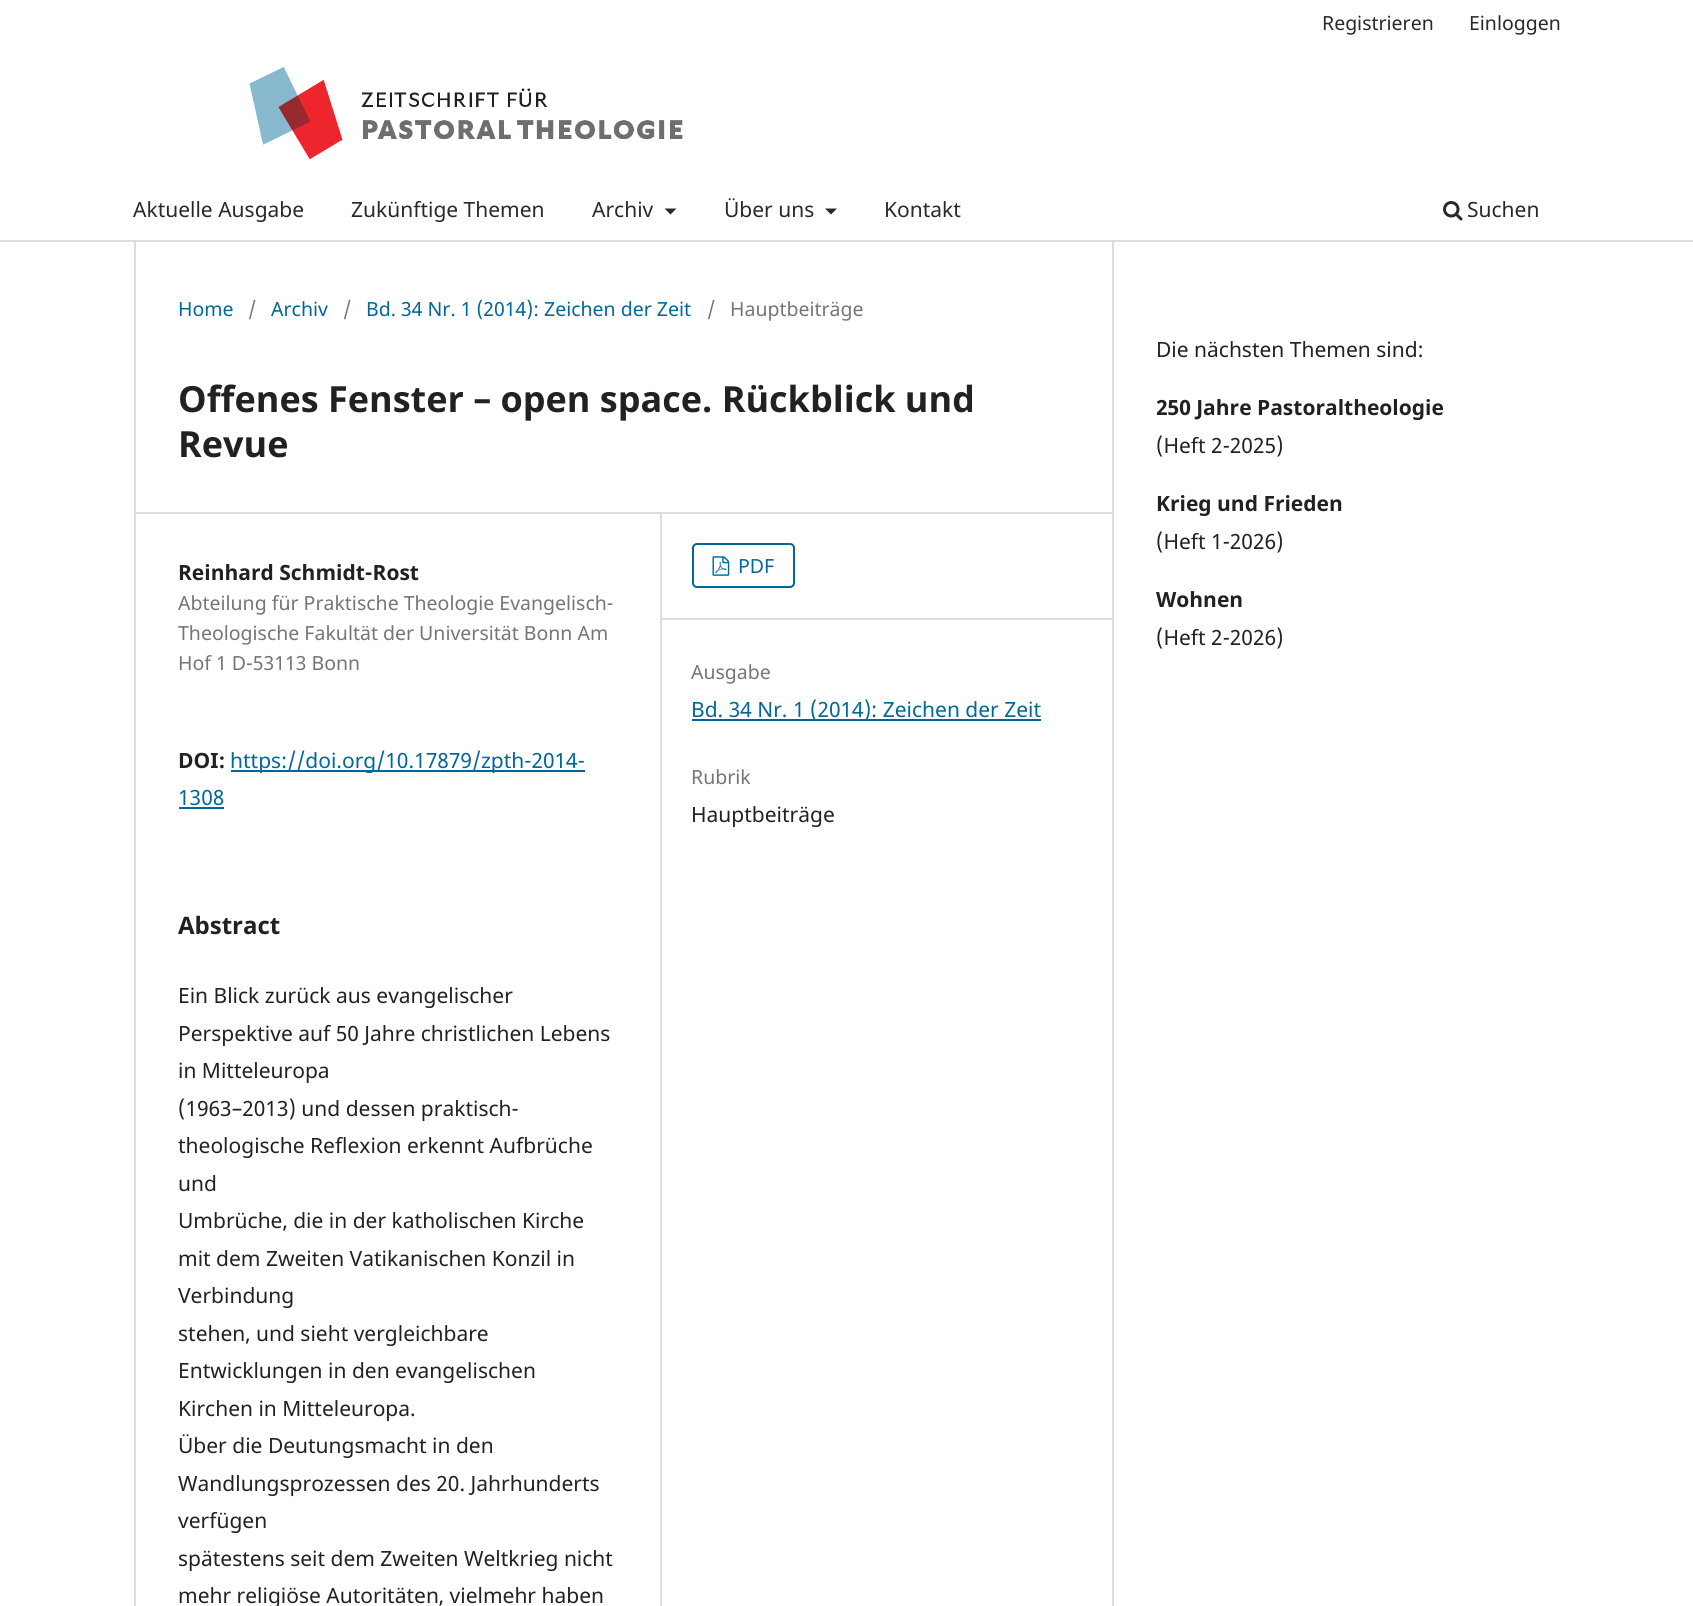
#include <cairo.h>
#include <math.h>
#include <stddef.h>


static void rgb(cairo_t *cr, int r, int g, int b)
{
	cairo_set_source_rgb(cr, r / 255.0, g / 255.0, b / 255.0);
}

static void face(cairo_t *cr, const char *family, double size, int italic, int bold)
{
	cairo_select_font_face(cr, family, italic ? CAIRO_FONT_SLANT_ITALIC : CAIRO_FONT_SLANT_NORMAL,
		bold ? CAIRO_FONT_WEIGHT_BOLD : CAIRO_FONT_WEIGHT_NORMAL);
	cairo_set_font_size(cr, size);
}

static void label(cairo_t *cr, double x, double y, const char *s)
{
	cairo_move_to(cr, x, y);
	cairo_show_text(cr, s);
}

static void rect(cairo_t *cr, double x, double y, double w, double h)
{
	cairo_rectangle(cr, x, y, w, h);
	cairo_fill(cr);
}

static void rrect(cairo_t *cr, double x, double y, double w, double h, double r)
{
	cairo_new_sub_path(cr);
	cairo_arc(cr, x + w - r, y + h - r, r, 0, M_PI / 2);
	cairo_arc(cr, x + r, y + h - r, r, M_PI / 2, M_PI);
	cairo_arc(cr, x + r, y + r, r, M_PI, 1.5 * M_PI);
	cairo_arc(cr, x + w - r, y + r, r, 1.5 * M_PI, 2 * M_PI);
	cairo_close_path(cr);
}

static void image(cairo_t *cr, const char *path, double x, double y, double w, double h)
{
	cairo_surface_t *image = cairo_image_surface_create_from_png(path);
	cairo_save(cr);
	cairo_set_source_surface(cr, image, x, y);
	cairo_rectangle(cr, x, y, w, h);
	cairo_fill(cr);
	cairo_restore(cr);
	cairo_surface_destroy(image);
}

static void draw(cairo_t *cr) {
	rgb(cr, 255, 255, 255);
	cairo_paint(cr);
	rgb(cr, 221, 221, 221);
	rect(cr, 0, 240, 1693, 2);
	face(cr, "Noto Sans", 19.5, 0, 0);
	rgb(cr, 41, 41, 41);
	label(cr, 1322, 30, "Registrieren");
	label(cr, 1469, 30, "Einloggen");
	face(cr, "Noto Sans", 21, 0, 0);
	label(cr, 133, 217, "Aktuelle Ausgabe");
	label(cr, 351, 217, "Zukünftige Themen");
	label(cr, 592, 217, "Archiv");
	cairo_new_path(cr);
	cairo_move_to(cr, 664.5, 208.5);
	cairo_line_to(cr, 676.5, 208.5);
	cairo_line_to(cr, 670.5, 214.5);
	cairo_close_path(cr);
	cairo_fill(cr);
	label(cr, 724, 217, "Über uns");
	cairo_new_path(cr);
	cairo_move_to(cr, 825, 208.5);
	cairo_line_to(cr, 837, 208.5);
	cairo_line_to(cr, 831, 214.5);
	cairo_close_path(cr);
	cairo_fill(cr);
	label(cr, 884, 217, "Kontakt");
	image(cr, "image0.png", 1443, 201, 20, 20);
	label(cr, 1467, 217, "Suchen");
	image(cr, "image1.png", 249, 67, 434, 92);
	rgb(cr, 221, 221, 221);
	rect(cr, 134, 512, 978, 2);
	rect(cr, 134, 242, 2, 1364);
	face(cr, "Noto Sans", 19.5, 0, 0);
	rgb(cr, 0, 103, 152);
	label(cr, 178, 316, "Home");
	rgb(cr, 117, 117, 117);
	label(cr, 248, 316, "/");
	rgb(cr, 0, 103, 152);
	label(cr, 271, 316, "Archiv");
	rgb(cr, 117, 117, 117);
	label(cr, 343, 316, "/");
	rgb(cr, 0, 103, 152);
	label(cr, 366, 316, "Bd. 34 Nr. 1 (2014): Zeichen der Zeit");
	rgb(cr, 117, 117, 117);
	label(cr, 707, 316, "/");
	label(cr, 730, 316, "Hauptbeiträge");
	face(cr, "Noto Sans", 36, 0, 1);
	rgb(cr, 33, 33, 33);
	label(cr, 178, 412, "Offenes Fenster – open space. Rückblick und");
	label(cr, 178, 457, "Revue");
	rgb(cr, 221, 221, 221);
	rect(cr, 660, 513, 2, 1093);
	face(cr, "Noto Sans", 21, 0, 1);
	rgb(cr, 33, 33, 33);
	label(cr, 178, 580, "Reinhard Schmidt-Rost");
	face(cr, "Noto Sans", 19.5, 0, 0);
	rgb(cr, 117, 117, 117);
	label(cr, 178, 610, "Abteilung für Praktische Theologie Evangelisch-");
	label(cr, 178, 640, "Theologische Fakultät der Universität Bonn Am");
	label(cr, 178, 670, "Hof 1 D-53113 Bonn");
	face(cr, "Noto Sans", 21, 0, 1);
	rgb(cr, 33, 33, 33);
	label(cr, 178, 768, "DOI:");
	rgb(cr, 0, 103, 152);
	rect(cr, 231, 770, 354, 2);
	face(cr, "Noto Sans", 21, 0, 0);
	label(cr, 230, 768, "https://doi.org/10.17879/zpth-2014-");
	label(cr, 178, 805, "1308");
	rect(cr, 179, 807, 45, 2);
	face(cr, "Noto Sans", 24, 0, 1);
	rgb(cr, 33, 33, 33);
	label(cr, 178, 934, "Abstract");
	face(cr, "Noto Sans", 21, 0, 0);
	label(cr, 178, 1003, "Ein Blick zurück aus evangelischer");
	label(cr, 178, 1041, "Perspektive auf 50 Jahre christlichen Lebens");
	label(cr, 178, 1078, "in Mitteleuropa");
	label(cr, 178, 1116, "(1963–2013) und dessen praktisch-");
	label(cr, 178, 1153, "theologische Reflexion erkennt Aufbrüche");
	label(cr, 178, 1191, "und");
	label(cr, 178, 1228, "Umbrüche, die in der katholischen Kirche");
	label(cr, 178, 1266, "mit dem Zweiten Vatikanischen Konzil in");
	label(cr, 178, 1303, "Verbindung");
	label(cr, 178, 1341, "stehen, und sieht vergleichbare");
	label(cr, 178, 1378, "Entwicklungen in den evangelischen");
	label(cr, 178, 1416, "Kirchen in Mitteleuropa.");
	label(cr, 178, 1453, "Über die Deutungsmacht in den");
	label(cr, 178, 1491, "Wandlungsprozessen des 20. Jahrhunderts");
	label(cr, 178, 1528, "verfügen");
	label(cr, 178, 1566, "spätestens seit dem Zweiten Weltkrieg nicht");
	label(cr, 178, 1603, "mehr religiöse Autoritäten, vielmehr haben");
	rgb(cr, 221, 221, 221);
	rect(cr, 662, 618, 450, 2);
	rrect(cr, 693, 544, 101, 43, 4);
	rgb(cr, 0, 103, 152);
	cairo_stroke(cr);
	image(cr, "image2.png", 712, 556, 18, 20);
	face(cr, "Noto Sans", 19.5, 0, 0);
	label(cr, 738, 573, "PDF");
	rgb(cr, 117, 117, 117);
	label(cr, 691, 679, "Ausgabe");
	rgb(cr, 0, 103, 152);
	rect(cr, 692, 719, 349, 2);
	face(cr, "Noto Sans", 21, 0, 0);
	label(cr, 691, 717, "Bd. 34 Nr. 1 (2014): Zeichen der Zeit");
	face(cr, "Noto Sans", 19.5, 0, 0);
	rgb(cr, 117, 117, 117);
	label(cr, 691, 784, "Rubrik");
	face(cr, "Noto Sans", 21, 0, 0);
	rgb(cr, 33, 33, 33);
	label(cr, 691, 822, "Hauptbeiträge");
	rgb(cr, 221, 221, 221);
	rect(cr, 1112, 242, 2, 1364);
	rgb(cr, 33, 33, 33);
	label(cr, 1156, 357, "Die nächsten Themen sind:");
	face(cr, "Noto Sans", 21, 0, 1);
	label(cr, 1156, 415, "250 Jahre Pastoraltheologie");
	face(cr, "Noto Sans", 21, 0, 0);
	label(cr, 1156, 453, "(Heft 2-2025)");
	face(cr, "Noto Sans", 21, 0, 1);
	label(cr, 1156, 511, "Krieg und Frieden");
	face(cr, "Noto Sans", 21, 0, 0);
	label(cr, 1156, 549, "(Heft 1-2026)");
	face(cr, "Noto Sans", 21, 0, 1);
	label(cr, 1156, 607, "Wohnen");
	face(cr, "Noto Sans", 21, 0, 0);
	label(cr, 1156, 645, "(Heft 2-2026)");
}

int main(void) {
	cairo_surface_t *surface = cairo_image_surface_create(CAIRO_FORMAT_RGB24, 1693, 1606);
	cairo_t *cr = cairo_create(surface);
	cairo_font_options_t *options = cairo_font_options_create();
	cairo_font_options_set_hint_metrics(options, CAIRO_HINT_METRICS_OFF);
	cairo_font_options_set_hint_style(options, CAIRO_HINT_STYLE_NONE);
	cairo_set_font_options(cr, options);
	cairo_set_miter_limit(cr, 4);
	draw(cr);
	cairo_surface_write_to_png(surface, "render.png");
	cairo_font_options_destroy(options);
	cairo_destroy(cr);
	cairo_surface_destroy(surface);
	return 0;
}
